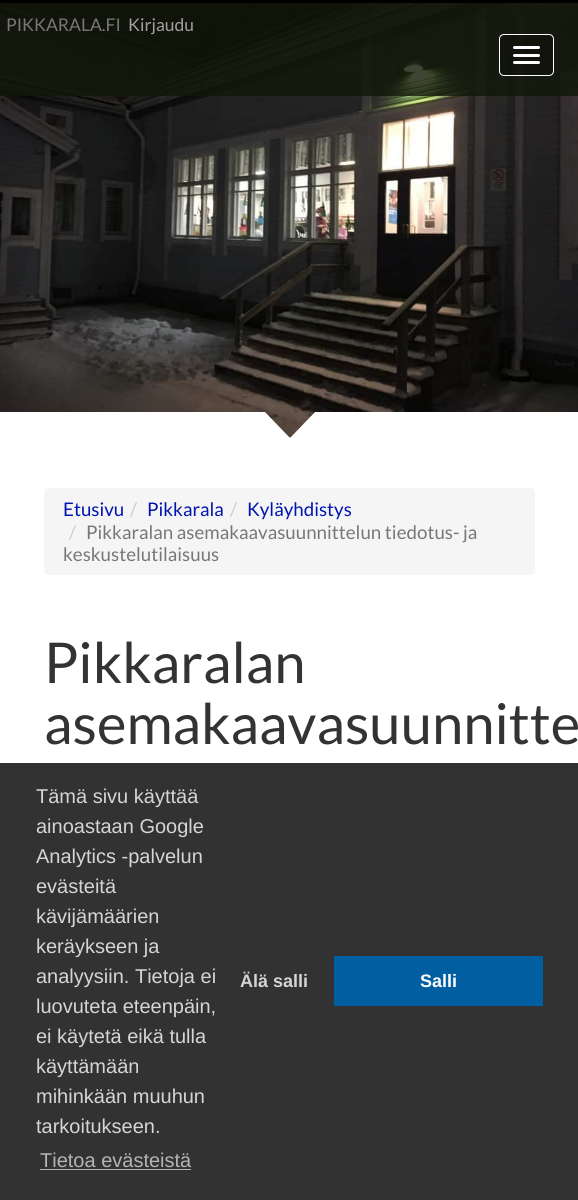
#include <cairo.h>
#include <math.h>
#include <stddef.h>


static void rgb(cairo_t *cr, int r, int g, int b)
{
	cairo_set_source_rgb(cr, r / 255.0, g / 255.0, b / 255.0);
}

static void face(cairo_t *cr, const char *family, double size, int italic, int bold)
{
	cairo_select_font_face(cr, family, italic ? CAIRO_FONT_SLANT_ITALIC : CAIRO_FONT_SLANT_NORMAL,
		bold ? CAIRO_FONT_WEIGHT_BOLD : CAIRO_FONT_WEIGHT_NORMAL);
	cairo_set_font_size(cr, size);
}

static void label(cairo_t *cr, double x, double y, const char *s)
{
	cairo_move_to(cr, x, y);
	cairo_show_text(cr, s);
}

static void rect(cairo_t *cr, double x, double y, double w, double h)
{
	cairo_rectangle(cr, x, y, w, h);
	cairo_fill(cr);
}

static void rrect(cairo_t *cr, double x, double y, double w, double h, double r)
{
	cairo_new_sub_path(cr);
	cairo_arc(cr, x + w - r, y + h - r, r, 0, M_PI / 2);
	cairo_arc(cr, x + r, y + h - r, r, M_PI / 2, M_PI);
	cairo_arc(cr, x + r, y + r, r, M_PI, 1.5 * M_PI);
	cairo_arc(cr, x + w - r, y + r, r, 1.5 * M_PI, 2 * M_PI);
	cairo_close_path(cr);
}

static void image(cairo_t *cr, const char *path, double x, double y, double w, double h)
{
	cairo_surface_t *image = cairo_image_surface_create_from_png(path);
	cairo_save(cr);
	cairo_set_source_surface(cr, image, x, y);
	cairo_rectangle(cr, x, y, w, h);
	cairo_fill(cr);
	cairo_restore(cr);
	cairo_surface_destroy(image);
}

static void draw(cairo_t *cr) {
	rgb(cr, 255, 255, 255);
	cairo_paint(cr);
	image(cr, "image0.png", 0, 3, 578, 435);
	rgb(cr, 255, 255, 255);
	cairo_new_path(cr);
	cairo_move_to(cr, 290, 438);
	cairo_line_to(cr, 0, 438);
	cairo_line_to(cr, 0, 412);
	cairo_line_to(cr, 265, 412);
	cairo_close_path(cr);
	cairo_fill(cr);
	cairo_new_path(cr);
	cairo_move_to(cr, 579, 438);
	cairo_line_to(cr, 290, 438);
	cairo_line_to(cr, 315, 412);
	cairo_line_to(cr, 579, 412);
	cairo_close_path(cr);
	cairo_fill(cr);
	cairo_set_source_rgba(cr, 0.071, 0.09, 0.035, 0.8);
	rect(cr, 0, 3, 578, 93);
	rgb(cr, 0, 0, 0);
	rect(cr, 0, 0, 578, 3);
	face(cr, "Lato", 17.5, 0, 0);
	rgb(cr, 119, 119, 119);
	label(cr, 6, 31, "PIKKARALA.FI");
	rgb(cr, 163, 161, 161);
	label(cr, 128, 31, "Kirjaudu");
	cairo_set_source_rgba(cr, 0, 0, 0, 0.2);
	rrect(cr, 499.5, 34.5, 54, 41, 4.5);
	cairo_fill_preserve(cr);
	rgb(cr, 255, 255, 255);
	cairo_set_line_width(cr, 1);
	cairo_stroke(cr);
	rrect(cr, 513, 46, 27, 3, 1.5);
	cairo_fill(cr);
	rrect(cr, 513, 54, 27, 3, 1.5);
	cairo_fill(cr);
	rrect(cr, 513, 61, 27, 3, 1.5);
	cairo_fill(cr);
	rgb(cr, 245, 245, 245);
	rrect(cr, 44, 488, 491, 87, 5);
	cairo_fill(cr);
	face(cr, "Lato", 18.75, 0, 0);
	rgb(cr, 0, 20, 177);
	label(cr, 63, 516, "Etusivu");
	rgb(cr, 204, 204, 204);
	label(cr, 130, 516, "/");
	rgb(cr, 0, 20, 177);
	label(cr, 147, 516, "Pikkarala");
	rgb(cr, 204, 204, 204);
	label(cr, 230, 516, "/");
	rgb(cr, 0, 20, 177);
	label(cr, 247, 516, "Kyläyhdistys");
	rgb(cr, 204, 204, 204);
	label(cr, 69, 539, "/");
	rgb(cr, 119, 119, 119);
	label(cr, 86, 539, "Pikkaralan asemakaavasuunnittelun tiedotus- ja");
	label(cr, 63, 561, "keskustelutilaisuus");
	face(cr, "Lato", 56.25, 0, 0);
	rgb(cr, 51, 51, 51);
	label(cr, 44, 683, "Pikkaralan");
	label(cr, 44, 744, "asemakaavasuunnitte");
	rgb(cr, 50, 50, 50);
	rect(cr, 0, 763, 578, 437);
	face(cr, "Liberation Sans", 20, 0, 0);
	rgb(cr, 213, 213, 213);
	label(cr, 36, 803, "Tämä sivu käyttää");
	label(cr, 36, 833, "ainoastaan Google");
	label(cr, 36, 863, "Analytics -palvelun");
	label(cr, 36, 893, "evästeitä");
	label(cr, 36, 923, "kävijämäärien");
	label(cr, 36, 953, "keräykseen ja");
	label(cr, 36, 983, "analyysiin. Tietoja ei");
	label(cr, 36, 1013, "luovuteta eteenpäin,");
	label(cr, 36, 1043, "ei käytetä eikä tulla");
	label(cr, 36, 1073, "käyttämään");
	label(cr, 36, 1103, "mihinkään muuhun");
	label(cr, 36, 1133, "tarkoitukseen.");
	rgb(cr, 180, 180, 180);
	label(cr, 40, 1167, "Tietoa evästeistä");
	rect(cr, 40, 1169, 151, 1);
	face(cr, "Liberation Sans", 18, 0, 1);
	rgb(cr, 213, 213, 213);
	label(cr, 240, 987, "Älä salli");
	rgb(cr, 0, 94, 161);
	rect(cr, 334, 956, 209, 50);
	rgb(cr, 255, 255, 255);
	label(cr, 420, 987, "Salli");
}

int main(void) {
	cairo_surface_t *surface = cairo_image_surface_create(CAIRO_FORMAT_RGB24, 578, 1200);
	cairo_t *cr = cairo_create(surface);
	cairo_font_options_t *options = cairo_font_options_create();
	cairo_font_options_set_hint_metrics(options, CAIRO_HINT_METRICS_OFF);
	cairo_font_options_set_hint_style(options, CAIRO_HINT_STYLE_NONE);
	cairo_set_font_options(cr, options);
	cairo_set_miter_limit(cr, 4);
	draw(cr);
	cairo_surface_write_to_png(surface, "render.png");
	cairo_font_options_destroy(options);
	cairo_destroy(cr);
	cairo_surface_destroy(surface);
	return 0;
}
